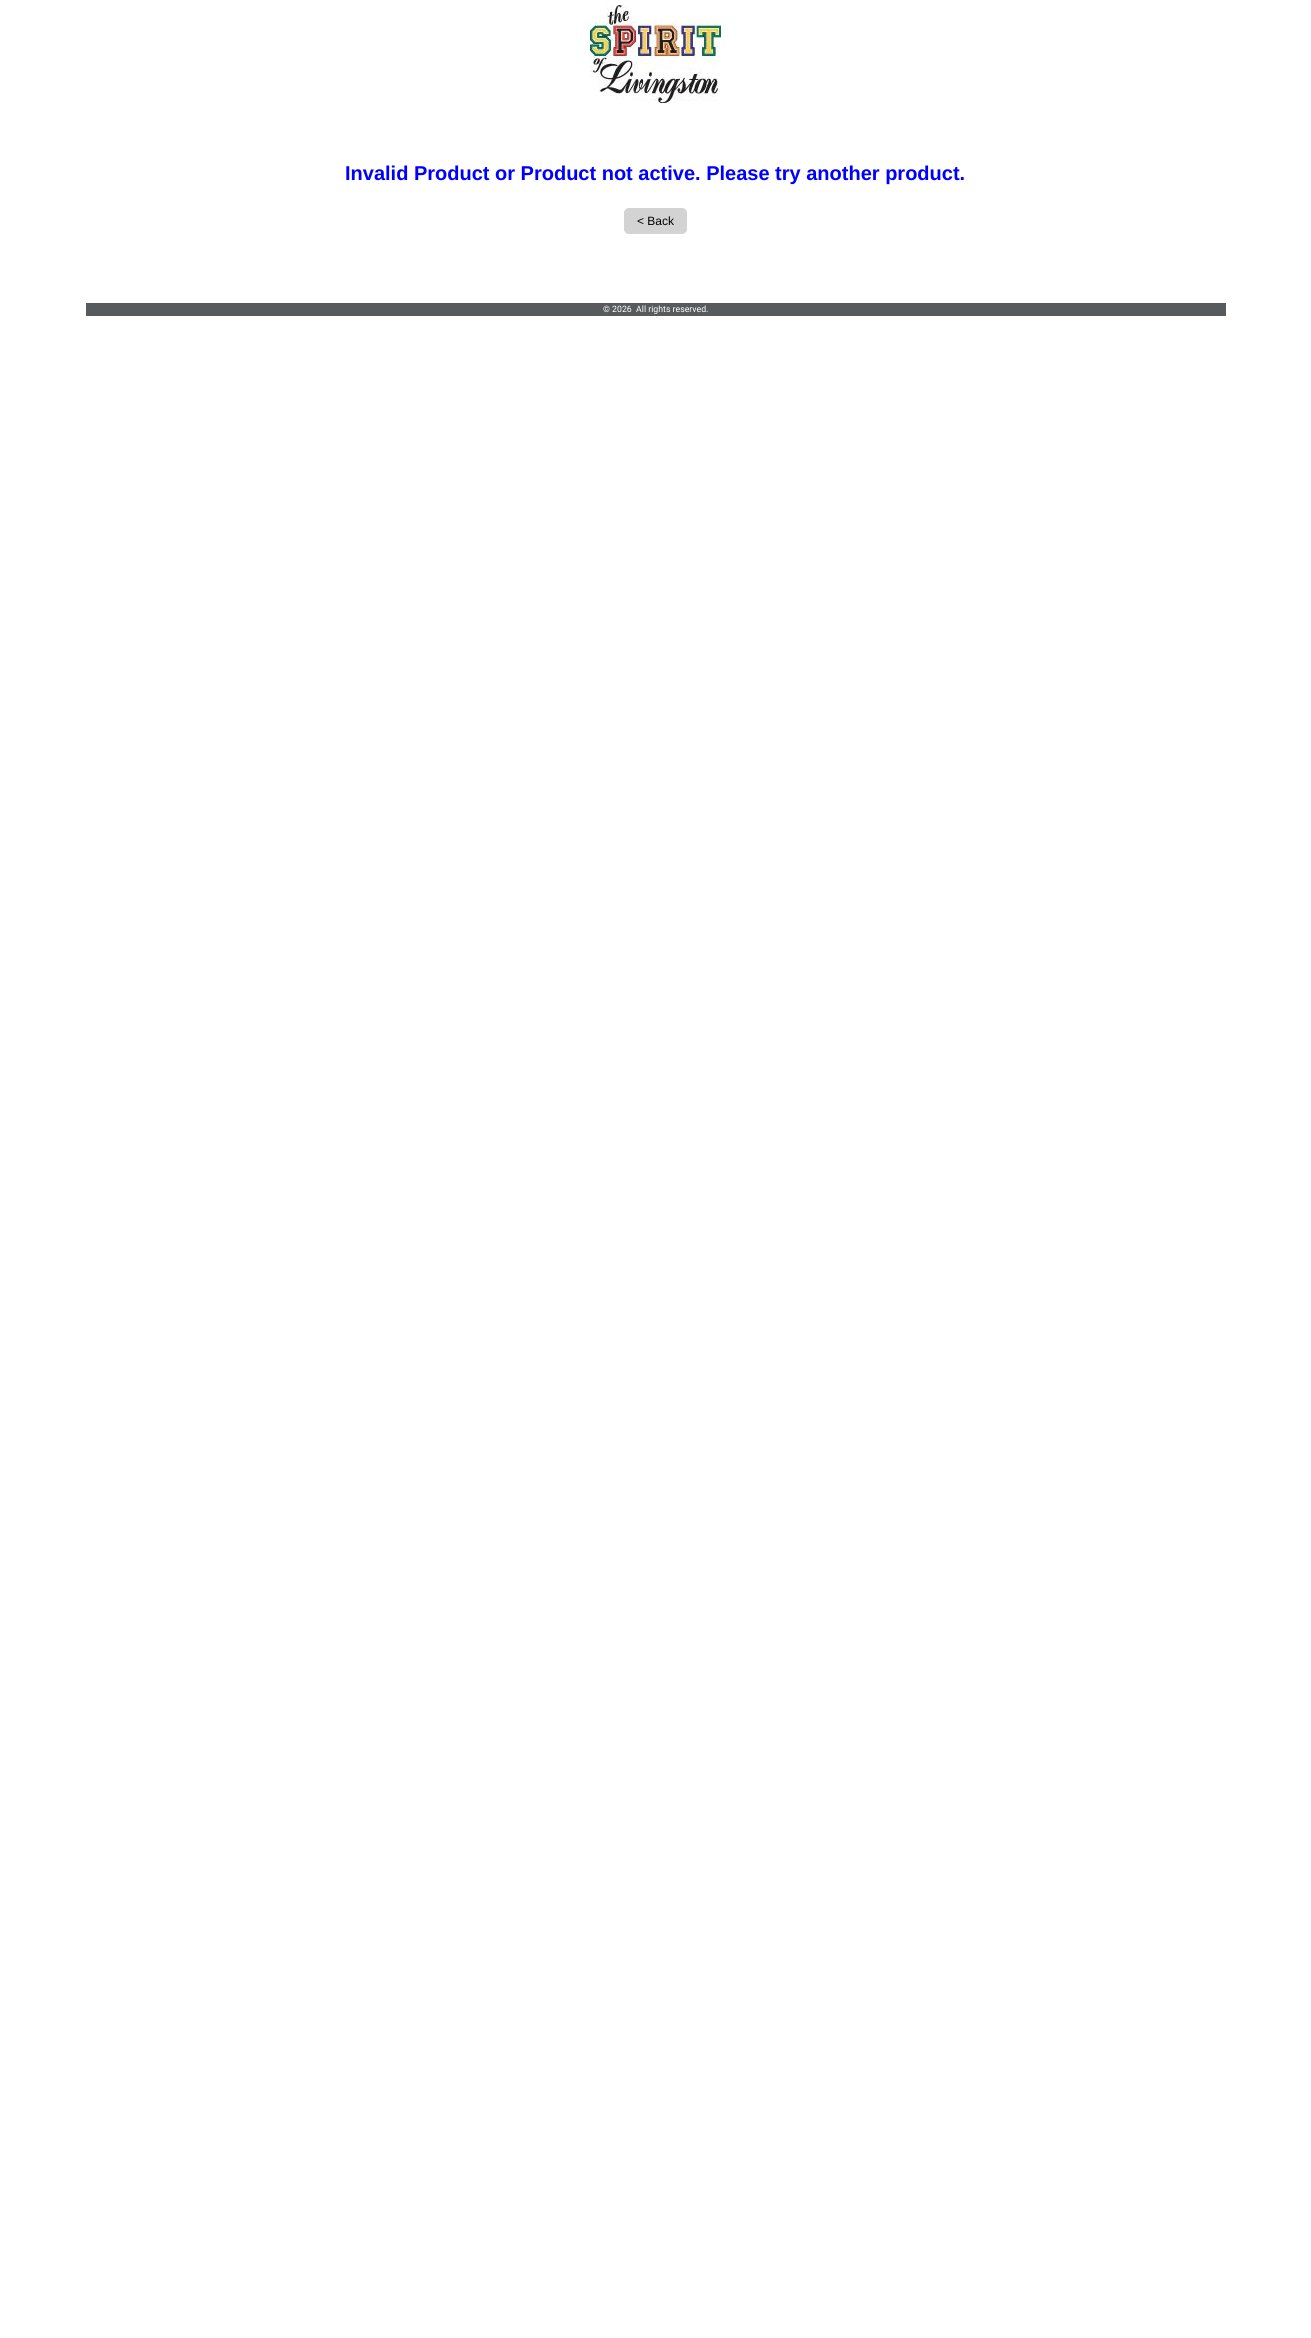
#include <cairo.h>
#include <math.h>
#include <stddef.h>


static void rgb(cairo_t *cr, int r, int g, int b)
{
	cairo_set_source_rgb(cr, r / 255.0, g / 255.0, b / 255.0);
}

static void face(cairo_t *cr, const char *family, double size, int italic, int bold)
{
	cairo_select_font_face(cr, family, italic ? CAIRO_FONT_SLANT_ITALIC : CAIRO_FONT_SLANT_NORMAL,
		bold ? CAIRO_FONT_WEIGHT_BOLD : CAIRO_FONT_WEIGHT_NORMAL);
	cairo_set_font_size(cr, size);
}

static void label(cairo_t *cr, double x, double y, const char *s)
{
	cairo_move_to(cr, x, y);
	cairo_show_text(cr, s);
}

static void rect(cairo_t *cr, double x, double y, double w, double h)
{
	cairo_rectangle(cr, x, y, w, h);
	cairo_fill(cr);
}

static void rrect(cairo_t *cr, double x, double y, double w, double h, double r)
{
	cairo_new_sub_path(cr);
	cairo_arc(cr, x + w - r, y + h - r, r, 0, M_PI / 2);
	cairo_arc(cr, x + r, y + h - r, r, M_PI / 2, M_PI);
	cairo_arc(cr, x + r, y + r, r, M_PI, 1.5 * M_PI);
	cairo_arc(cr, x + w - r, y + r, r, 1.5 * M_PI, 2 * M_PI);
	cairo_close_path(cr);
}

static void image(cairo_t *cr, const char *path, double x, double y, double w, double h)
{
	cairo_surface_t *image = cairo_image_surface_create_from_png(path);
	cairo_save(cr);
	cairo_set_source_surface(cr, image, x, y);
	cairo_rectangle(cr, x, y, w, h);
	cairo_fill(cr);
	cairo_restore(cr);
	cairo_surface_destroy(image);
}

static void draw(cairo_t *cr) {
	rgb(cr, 255, 255, 255);
	cairo_paint(cr);
	image(cr, "image0.png", 590, 5, 131, 98);
	face(cr, "Liberation Sans", 20, 0, 1);
	rgb(cr, 0, 0, 255);
	label(cr, 345, 180, "Invalid Product or Product not active. Please try another product.");
	rgb(cr, 211, 211, 211);
	rrect(cr, 624.5, 208.5, 62, 25, 4.5);
	cairo_fill_preserve(cr);
	cairo_set_line_width(cr, 1);
	cairo_stroke(cr);
	face(cr, "Liberation Sans", 12, 0, 0);
	rgb(cr, 0, 0, 0);
	label(cr, 637, 225, "< Back");
	rgb(cr, 87, 91, 94);
	rect(cr, 86, 303, 1140, 13);
	face(cr, "Roboto", 8.75, 0, 0);
	rgb(cr, 255, 255, 255);
	label(cr, 603, 312, "© 2026  All rights reserved.");
}

int main(void) {
	cairo_surface_t *surface = cairo_image_surface_create(CAIRO_FORMAT_RGB24, 1311, 2338);
	cairo_t *cr = cairo_create(surface);
	cairo_font_options_t *options = cairo_font_options_create();
	cairo_font_options_set_hint_metrics(options, CAIRO_HINT_METRICS_OFF);
	cairo_font_options_set_hint_style(options, CAIRO_HINT_STYLE_NONE);
	cairo_set_font_options(cr, options);
	cairo_set_miter_limit(cr, 4);
	draw(cr);
	cairo_surface_write_to_png(surface, "render.png");
	cairo_font_options_destroy(options);
	cairo_destroy(cr);
	cairo_surface_destroy(surface);
	return 0;
}
